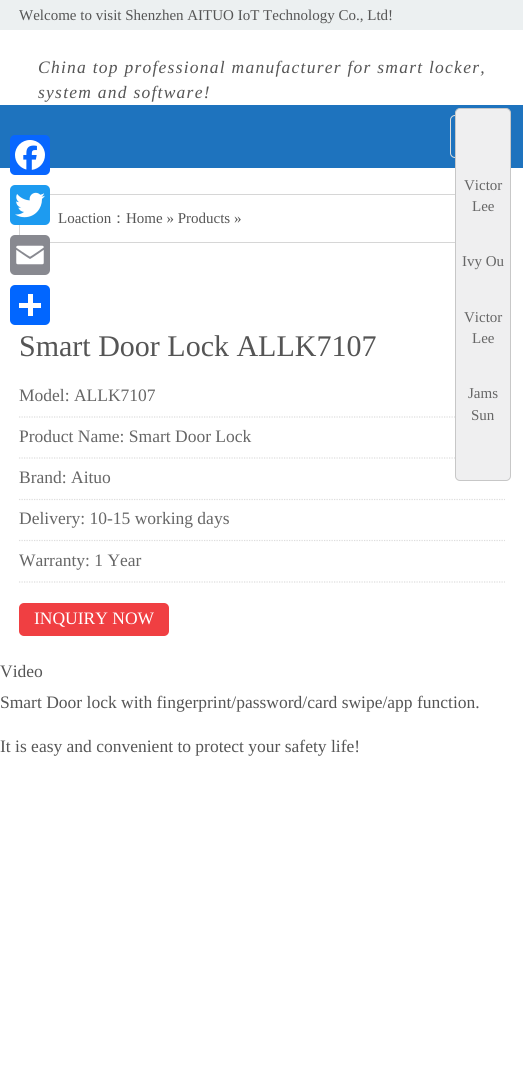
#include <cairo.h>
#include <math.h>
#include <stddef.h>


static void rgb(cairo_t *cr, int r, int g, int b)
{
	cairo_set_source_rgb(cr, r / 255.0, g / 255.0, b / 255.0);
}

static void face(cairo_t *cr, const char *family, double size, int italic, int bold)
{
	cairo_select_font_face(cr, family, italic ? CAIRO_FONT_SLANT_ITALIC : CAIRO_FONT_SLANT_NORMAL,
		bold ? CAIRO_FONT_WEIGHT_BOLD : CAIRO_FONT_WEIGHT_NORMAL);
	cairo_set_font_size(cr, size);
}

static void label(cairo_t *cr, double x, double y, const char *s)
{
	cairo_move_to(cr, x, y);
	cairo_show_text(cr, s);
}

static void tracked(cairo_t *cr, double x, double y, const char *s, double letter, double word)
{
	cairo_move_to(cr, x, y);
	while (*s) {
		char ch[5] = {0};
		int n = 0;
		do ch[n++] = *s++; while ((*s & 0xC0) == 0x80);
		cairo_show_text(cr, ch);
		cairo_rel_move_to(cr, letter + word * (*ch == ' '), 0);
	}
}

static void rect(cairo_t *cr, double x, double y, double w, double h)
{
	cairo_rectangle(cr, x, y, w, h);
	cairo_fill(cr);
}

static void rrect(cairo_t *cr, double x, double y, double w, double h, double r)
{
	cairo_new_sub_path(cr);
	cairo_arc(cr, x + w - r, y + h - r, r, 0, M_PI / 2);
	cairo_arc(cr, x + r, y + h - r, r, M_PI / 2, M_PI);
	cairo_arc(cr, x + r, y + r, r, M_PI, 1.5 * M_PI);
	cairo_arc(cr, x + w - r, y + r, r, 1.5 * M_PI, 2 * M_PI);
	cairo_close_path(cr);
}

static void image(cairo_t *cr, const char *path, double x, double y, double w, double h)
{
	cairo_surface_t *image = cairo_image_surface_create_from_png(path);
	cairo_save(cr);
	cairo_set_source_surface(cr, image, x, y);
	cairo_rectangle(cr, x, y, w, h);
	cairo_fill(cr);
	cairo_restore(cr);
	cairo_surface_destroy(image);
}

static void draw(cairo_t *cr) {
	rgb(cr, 255, 255, 255);
	cairo_paint(cr);
	rgb(cr, 236, 240, 241);
	rect(cr, 0, 0, 523, 30);
	face(cr, "Liberation Serif", 15, 0, 0);
	rgb(cr, 85, 85, 85);
	label(cr, 19, 20, "Welcome to visit Shenzhen AITUO IoT Technology Co., Ltd!");
	face(cr, "Liberation Serif", 17.5, 1, 0);
	tracked(cr, 38, 73, "China top professional manufacturer for smart locker,", 1.25, 0);
	tracked(cr, 38, 98, "system and software!", 1.25, 0);
	rgb(cr, 30, 115, 190);
	rect(cr, 0, 105, 523, 63);
	rrect(cr, 450.5, 115.5, 54, 42, 4.5);
	rgb(cr, 221, 221, 221);
	cairo_set_line_width(cr, 1);
	cairo_stroke(cr);
	rgb(cr, 8, 102, 255);
	rrect(cr, 10, 135, 40, 40, 5);
	cairo_fill(cr);
	image(cr, "image0.png", 15, 140, 30, 30);
	cairo_rectangle(cr, 19.5, 194.5, 485, 48);
	rgb(cr, 214, 214, 214);
	cairo_stroke(cr);
	rgb(cr, 29, 155, 240);
	rrect(cr, 10, 185, 40, 40, 5);
	cairo_fill(cr);
	image(cr, "image1.png", 15, 192, 30, 26);
	rgb(cr, 136, 137, 144);
	rrect(cr, 10, 235, 40, 40, 5);
	cairo_fill(cr);
	image(cr, "image2.png", 16, 245, 28, 20);
	rgb(cr, 1, 102, 255);
	rrect(cr, 10, 285, 40, 40, 5);
	cairo_fill(cr);
	rgb(cr, 255, 255, 255);
	rect(cr, 28, 294, 5, 22);
	rect(cr, 19, 303, 22, 5);
	cairo_new_path(cr);
	cairo_move_to(cr, 19, 417);
	cairo_line_to(cr, 505, 417);
	rgb(cr, 221, 221, 221);
	cairo_set_line_width(cr, 1.2);
	cairo_set_dash(cr, (double[]){1.25, 1.25}, 2, 0);
	cairo_stroke(cr);
	cairo_new_path(cr);
	cairo_move_to(cr, 19, 458);
	cairo_line_to(cr, 505, 458);
	cairo_stroke(cr);
	rgb(cr, 239, 239, 240);
	rrect(cr, 455.5, 108.5, 55, 372, 4.5);
	cairo_fill_preserve(cr);
	rgb(cr, 199, 199, 199);
	cairo_set_line_width(cr, 1);
	cairo_set_dash(cr, NULL, 0, 0);
	cairo_stroke(cr);
	face(cr, "Liberation Serif", 15, 0, 0);
	rgb(cr, 102, 102, 102);
	label(cr, 464, 190, "Victor");
	label(cr, 472, 211, "Lee");
	label(cr, 462, 266, "Ivy Ou");
	label(cr, 464, 322, "Victor");
	label(cr, 472, 343, "Lee");
	label(cr, 468, 398, "Jams");
	label(cr, 471, 420, "Sun");
	rgb(cr, 85, 85, 85);
	label(cr, 58, 223, "Loaction");
	face(cr, "WenQuanYi Zen Hei Medium", 15, 0, 0);
	label(cr, 111, 223, "：");
	face(cr, "Liberation Serif", 15, 0, 0);
	label(cr, 126, 223, "Home » Products »");
	face(cr, "Liberation Serif", 30, 0, 0);
	label(cr, 19, 356, "Smart Door Lock ALLK7107");
	face(cr, "Liberation Serif", 17.5, 0, 0);
	rgb(cr, 102, 102, 102);
	label(cr, 19, 401, "Model: ALLK7107");
	label(cr, 19, 442, "Product Name: Smart Door Lock");
	cairo_new_path(cr);
	cairo_move_to(cr, 19, 499.5);
	cairo_line_to(cr, 505, 499.5);
	rgb(cr, 221, 221, 221);
	cairo_set_line_width(cr, 1.2);
	cairo_set_dash(cr, (double[]){1.25, 1.25}, 2, 0);
	cairo_stroke(cr);
	rgb(cr, 102, 102, 102);
	label(cr, 19, 483, "Brand: Aituo");
	cairo_new_path(cr);
	cairo_move_to(cr, 19, 540.5);
	cairo_line_to(cr, 505, 540.5);
	rgb(cr, 221, 221, 221);
	cairo_stroke(cr);
	rgb(cr, 102, 102, 102);
	label(cr, 19, 524, "Delivery: 10-15 working days");
	cairo_new_path(cr);
	cairo_move_to(cr, 19, 582);
	cairo_line_to(cr, 505, 582);
	rgb(cr, 221, 221, 221);
	cairo_stroke(cr);
	rgb(cr, 102, 102, 102);
	label(cr, 19, 566, "Warranty: 1 Year");
	rgb(cr, 240, 63, 66);
	rrect(cr, 19, 603, 150, 33, 5);
	cairo_fill(cr);
	rgb(cr, 255, 255, 255);
	label(cr, 34, 624, "INQUIRY NOW");
	rgb(cr, 85, 85, 85);
	label(cr, 0, 677, "Video");
	label(cr, 0, 708, "Smart Door lock with fingerprint/password/card swipe/app function.");
	label(cr, 0, 752, "It is easy and convenient to protect your safety life!");
}

int main(void) {
	cairo_surface_t *surface = cairo_image_surface_create(CAIRO_FORMAT_RGB24, 523, 1068);
	cairo_t *cr = cairo_create(surface);
	cairo_font_options_t *options = cairo_font_options_create();
	cairo_font_options_set_hint_metrics(options, CAIRO_HINT_METRICS_OFF);
	cairo_font_options_set_hint_style(options, CAIRO_HINT_STYLE_NONE);
	cairo_set_font_options(cr, options);
	cairo_set_miter_limit(cr, 4);
	draw(cr);
	cairo_surface_write_to_png(surface, "render.png");
	cairo_font_options_destroy(options);
	cairo_destroy(cr);
	cairo_surface_destroy(surface);
	return 0;
}
